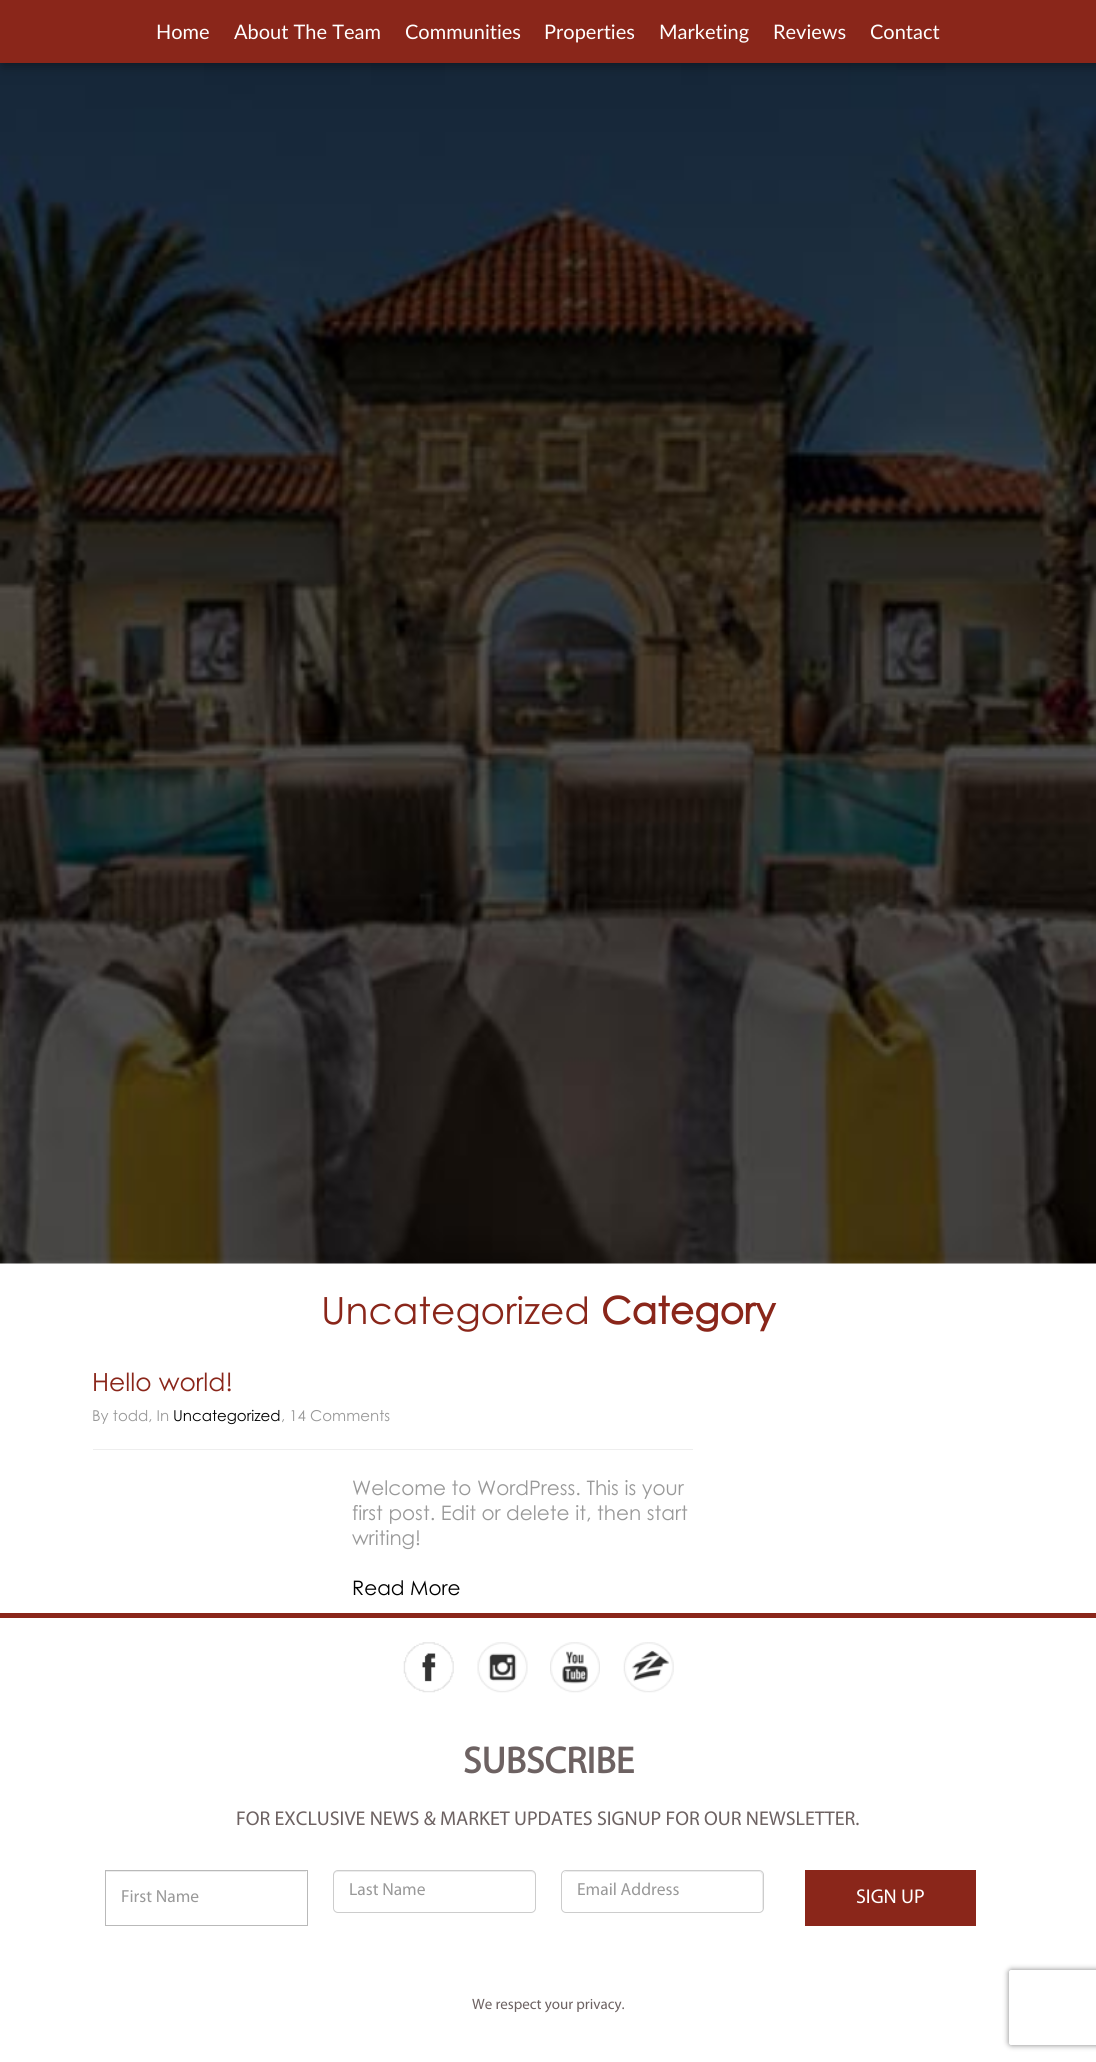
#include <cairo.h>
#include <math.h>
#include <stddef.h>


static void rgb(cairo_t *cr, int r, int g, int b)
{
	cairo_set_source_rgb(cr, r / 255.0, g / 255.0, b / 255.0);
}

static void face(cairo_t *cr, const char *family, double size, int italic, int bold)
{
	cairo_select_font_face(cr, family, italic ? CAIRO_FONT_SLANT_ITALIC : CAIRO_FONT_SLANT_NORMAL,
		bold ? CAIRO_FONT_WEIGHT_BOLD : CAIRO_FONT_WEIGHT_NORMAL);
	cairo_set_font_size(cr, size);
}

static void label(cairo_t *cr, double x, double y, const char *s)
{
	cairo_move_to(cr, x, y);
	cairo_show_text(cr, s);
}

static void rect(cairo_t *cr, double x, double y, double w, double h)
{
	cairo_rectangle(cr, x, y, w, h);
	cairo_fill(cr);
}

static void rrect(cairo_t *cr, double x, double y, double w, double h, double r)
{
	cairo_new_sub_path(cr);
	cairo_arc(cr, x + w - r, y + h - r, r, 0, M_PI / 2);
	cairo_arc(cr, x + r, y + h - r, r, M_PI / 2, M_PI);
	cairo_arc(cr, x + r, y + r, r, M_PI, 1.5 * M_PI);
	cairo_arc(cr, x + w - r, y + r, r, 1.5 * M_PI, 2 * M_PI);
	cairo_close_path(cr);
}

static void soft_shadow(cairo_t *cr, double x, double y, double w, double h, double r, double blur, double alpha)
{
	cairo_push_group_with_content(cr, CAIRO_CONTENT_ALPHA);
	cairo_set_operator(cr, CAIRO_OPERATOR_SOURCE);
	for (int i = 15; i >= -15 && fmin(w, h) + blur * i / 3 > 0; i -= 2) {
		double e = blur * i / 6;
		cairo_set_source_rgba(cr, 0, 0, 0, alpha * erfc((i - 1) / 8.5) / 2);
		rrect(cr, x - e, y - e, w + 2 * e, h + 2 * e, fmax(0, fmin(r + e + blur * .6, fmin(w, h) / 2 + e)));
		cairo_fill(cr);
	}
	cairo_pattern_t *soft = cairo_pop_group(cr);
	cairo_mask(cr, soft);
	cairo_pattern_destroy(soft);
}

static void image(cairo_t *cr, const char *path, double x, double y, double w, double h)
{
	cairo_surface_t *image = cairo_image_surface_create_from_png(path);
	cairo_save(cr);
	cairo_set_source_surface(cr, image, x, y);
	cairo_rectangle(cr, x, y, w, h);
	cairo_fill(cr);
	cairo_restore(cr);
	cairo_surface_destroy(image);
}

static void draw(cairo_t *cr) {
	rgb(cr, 255, 255, 255);
	cairo_paint(cr);
	image(cr, "image0.png", 0, 63, 1096, 1201);
	rgb(cr, 0, 0, 0);
	soft_shadow(cr, 3, 3, 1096, 62, 0, 6, 0.41);
	rgb(cr, 138, 38, 26);
	rect(cr, 0, 0, 1096, 63);
	face(cr, "Lato", 20, 0, 0);
	rgb(cr, 255, 255, 255);
	label(cr, 156, 39, "Home");
	label(cr, 234, 39, "About The Team");
	label(cr, 405, 39, "Communities");
	label(cr, 544, 39, "Properties");
	label(cr, 659, 39, "Marketing");
	label(cr, 773, 39, "Reviews");
	label(cr, 870, 39, "Contact");
	face(cr, "Century Gothic", 37.5, 0, 0);
	rgb(cr, 138, 38, 26);
	label(cr, 321, 1324, "Uncategorized");
	face(cr, "Century Gothic", 37.5, 0, 1);
	label(cr, 601, 1324, "Category");
	face(cr, "Century Gothic", 25, 0, 0);
	label(cr, 92, 1391, "Hello world!");
	face(cr, "Century Gothic", 15, 0, 0);
	rgb(cr, 153, 153, 153);
	label(cr, 92, 1421, "By todd, In");
	rgb(cr, 0, 0, 0);
	label(cr, 173, 1421, "Uncategorized");
	rgb(cr, 153, 153, 153);
	label(cr, 281, 1421, ", 14 Comments");
	rgb(cr, 238, 238, 238);
	rect(cr, 93, 1449, 600, 1);
	face(cr, "Century Gothic", 20, 0, 0);
	rgb(cr, 153, 153, 153);
	label(cr, 352, 1495, "Welcome to WordPress. This is your");
	label(cr, 352, 1520, "first post. Edit or delete it, then start");
	label(cr, 352, 1545, "writing!");
	rgb(cr, 0, 0, 0);
	label(cr, 352, 1595, "Read More");
	rgb(cr, 138, 38, 26);
	rect(cr, 0, 1613, 1096, 5);
	image(cr, "image1.png", 403, 1642, 51, 51);
	image(cr, "image2.png", 477, 1642, 51, 51);
	image(cr, "image3.png", 550, 1642, 50, 51);
	image(cr, "image4.png", 623, 1642, 51, 51);
	face(cr, "Myriad", 37.5, 0, 1);
	rgb(cr, 109, 98, 98);
	label(cr, 463, 1773, "SUBSCRIBE");
	face(cr, "Myriad", 20, 0, 0);
	label(cr, 236, 1825, "FOR EXCLUSIVE NEWS & MARKET UPDATES SIGNUP FOR OUR NEWSLETTER.");
	rgb(cr, 236, 236, 236);
	rect(cr, 106, 1871, 200, 1);
	cairo_rectangle(cr, 105.5, 1870.5, 202, 55);
	rgb(cr, 185, 185, 185);
	cairo_set_line_width(cr, 1);
	cairo_stroke(cr);
	face(cr, "Myriad", 17.5, 0, 0);
	rgb(cr, 153, 153, 153);
	label(cr, 121, 1902, "First Name");
	rgb(cr, 236, 236, 236);
	cairo_new_path(cr);
	cairo_move_to(cr, 338, 1872);
	cairo_line_to(cr, 531, 1872);
	cairo_curve_to(cr, 533, 1872, 535, 1874, 535, 1876);
	cairo_line_to(cr, 535, 1875);
	cairo_curve_to(cr, 535, 1873, 533, 1871, 531, 1871);
	cairo_line_to(cr, 338, 1871);
	cairo_curve_to(cr, 336, 1871, 334, 1873, 334, 1875);
	cairo_line_to(cr, 334, 1876);
	cairo_curve_to(cr, 334, 1874, 335, 1872, 338, 1872);
	cairo_close_path(cr);
	cairo_fill(cr);
	rrect(cr, 333.5, 1870.5, 202, 42, 4.5);
	rgb(cr, 204, 204, 204);
	cairo_stroke(cr);
	rgb(cr, 153, 153, 153);
	label(cr, 349, 1895, "Last Name");
	rgb(cr, 236, 236, 236);
	cairo_new_path(cr);
	cairo_move_to(cr, 566, 1872);
	cairo_line_to(cr, 759, 1872);
	cairo_curve_to(cr, 761, 1872, 762, 1874, 762, 1876);
	cairo_line_to(cr, 762, 1910);
	cairo_curve_to(cr, 763, 1909, 763, 1908, 763, 1907);
	cairo_line_to(cr, 763, 1875);
	cairo_curve_to(cr, 763, 1873, 761, 1871, 759, 1871);
	cairo_line_to(cr, 567, 1871);
	cairo_curve_to(cr, 566, 1871, 564, 1872, 564, 1873);
	cairo_close_path(cr);
	cairo_fill(cr);
	rrect(cr, 561.5, 1870.5, 202, 42, 4.5);
	rgb(cr, 204, 204, 204);
	cairo_stroke(cr);
	rgb(cr, 153, 153, 153);
	label(cr, 577, 1895, "Email Address");
	rgb(cr, 138, 38, 26);
	rect(cr, 805, 1870, 171, 56);
	face(cr, "Myriad", 20, 0, 0);
	rgb(cr, 255, 255, 255);
	label(cr, 856, 1903, "SIGN UP");
	face(cr, "Myriad", 15, 0, 0);
	rgb(cr, 109, 98, 98);
	label(cr, 472, 2009, "We respect your privacy.");
	cairo_save(cr);
	cairo_set_fill_rule(cr, CAIRO_FILL_RULE_EVEN_ODD);
	cairo_new_path(cr);
	cairo_move_to(cr, 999, 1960);
	cairo_line_to(cr, 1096, 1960);
	cairo_line_to(cr, 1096, 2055);
	cairo_line_to(cr, 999, 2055);
	cairo_close_path(cr);
	cairo_move_to(cr, 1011.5, 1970);
	cairo_line_to(cr, 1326.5, 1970);
	cairo_curve_to(cr, 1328, 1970, 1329, 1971, 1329, 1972.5);
	cairo_line_to(cr, 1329, 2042.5);
	cairo_curve_to(cr, 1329, 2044, 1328, 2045, 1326.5, 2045);
	cairo_line_to(cr, 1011.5, 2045);
	cairo_curve_to(cr, 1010, 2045, 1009, 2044, 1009, 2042.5);
	cairo_line_to(cr, 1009, 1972.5);
	cairo_curve_to(cr, 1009, 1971, 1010, 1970, 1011.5, 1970);
	cairo_close_path(cr);
	cairo_clip(cr);
	rgb(cr, 128, 128, 128);
	soft_shadow(cr, 1009, 1970, 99, 75, 2.5, 3, 1);
	cairo_restore(cr);
}

int main(void) {
	cairo_surface_t *surface = cairo_image_surface_create(CAIRO_FORMAT_RGB24, 1096, 2062);
	cairo_t *cr = cairo_create(surface);
	cairo_font_options_t *options = cairo_font_options_create();
	cairo_font_options_set_hint_metrics(options, CAIRO_HINT_METRICS_OFF);
	cairo_font_options_set_hint_style(options, CAIRO_HINT_STYLE_NONE);
	cairo_set_font_options(cr, options);
	cairo_set_miter_limit(cr, 4);
	draw(cr);
	cairo_surface_write_to_png(surface, "render.png");
	cairo_font_options_destroy(options);
	cairo_destroy(cr);
	cairo_surface_destroy(surface);
	return 0;
}
